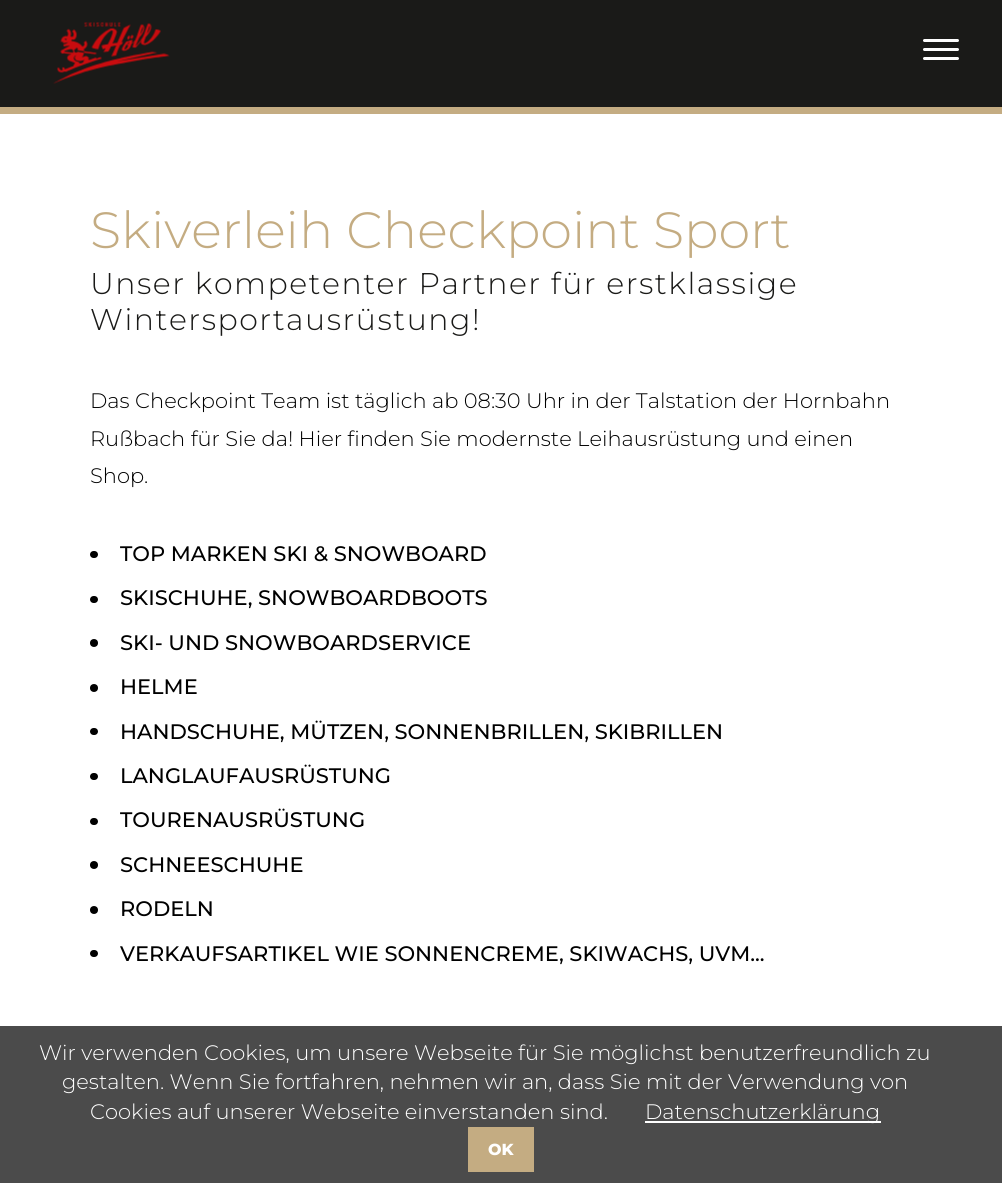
#include <cairo.h>
#include <math.h>
#include <stddef.h>


static void rgb(cairo_t *cr, int r, int g, int b)
{
	cairo_set_source_rgb(cr, r / 255.0, g / 255.0, b / 255.0);
}

static void face(cairo_t *cr, const char *family, double size, int italic, int bold)
{
	cairo_select_font_face(cr, family, italic ? CAIRO_FONT_SLANT_ITALIC : CAIRO_FONT_SLANT_NORMAL,
		bold ? CAIRO_FONT_WEIGHT_BOLD : CAIRO_FONT_WEIGHT_NORMAL);
	cairo_set_font_size(cr, size);
}

static void label(cairo_t *cr, double x, double y, const char *s)
{
	cairo_move_to(cr, x, y);
	cairo_show_text(cr, s);
}

static void tracked(cairo_t *cr, double x, double y, const char *s, double letter, double word)
{
	cairo_move_to(cr, x, y);
	while (*s) {
		char ch[5] = {0};
		int n = 0;
		do ch[n++] = *s++; while ((*s & 0xC0) == 0x80);
		cairo_show_text(cr, ch);
		cairo_rel_move_to(cr, letter + word * (*ch == ' '), 0);
	}
}

static void rect(cairo_t *cr, double x, double y, double w, double h)
{
	cairo_rectangle(cr, x, y, w, h);
	cairo_fill(cr);
}

static void rrect(cairo_t *cr, double x, double y, double w, double h, double r)
{
	cairo_new_sub_path(cr);
	cairo_arc(cr, x + w - r, y + h - r, r, 0, M_PI / 2);
	cairo_arc(cr, x + r, y + h - r, r, M_PI / 2, M_PI);
	cairo_arc(cr, x + r, y + r, r, M_PI, 1.5 * M_PI);
	cairo_arc(cr, x + w - r, y + r, r, 1.5 * M_PI, 2 * M_PI);
	cairo_close_path(cr);
}

static void image(cairo_t *cr, const char *path, double x, double y, double w, double h)
{
	cairo_surface_t *image = cairo_image_surface_create_from_png(path);
	cairo_save(cr);
	cairo_set_source_surface(cr, image, x, y);
	cairo_rectangle(cr, x, y, w, h);
	cairo_fill(cr);
	cairo_restore(cr);
	cairo_surface_destroy(image);
}

static void draw(cairo_t *cr) {
	rgb(cr, 255, 255, 255);
	cairo_paint(cr);
	rgb(cr, 26, 26, 24);
	rect(cr, 0, 0, 1002, 107);
	rgb(cr, 255, 255, 255);
	rrect(cr, 923, 48, 36, 3, 1.5);
	cairo_fill(cr);
	rrect(cr, 923, 39, 36, 3, 1.5);
	cairo_fill(cr);
	rrect(cr, 923, 57, 36, 3, 1.5);
	cairo_fill(cr);
	rgb(cr, 196, 172, 130);
	rect(cr, 0, 107, 1002, 7);
	image(cr, "image0.png", 53, 22, 117, 62);
	face(cr, "Montserrat Light", 51, 0, 0);
	label(cr, 90, 248, "Skiverleih Checkpoint Sport");
	face(cr, "Montserrat Light", 30, 0, 0);
	rgb(cr, 26, 26, 24);
	tracked(cr, 90, 294, "Unser kompetenter Partner für erstklassige", 1.5, 0);
	tracked(cr, 90, 330, "Wintersportausrüstung!", 1.5, 0);
	face(cr, "Montserrat Light", 21, 0, 0);
	rgb(cr, 0, 0, 0);
	label(cr, 90, 408, "Das Checkpoint Team ist täglich ab 08:30 Uhr in der Talstation der Hornbahn");
	label(cr, 90, 446, "Rußbach für Sie da! Hier finden Sie modernste Leihausrüstung und einen");
	label(cr, 90, 483, "Shop.");
	rrect(cr, 90, 551, 8, 7, 3.5);
	cairo_fill(cr);
	face(cr, "Montserrat Medium", 21, 0, 0);
	label(cr, 120, 561, "TOP MARKEN SKI & SNOWBOARD");
	rrect(cr, 90, 596, 8, 7, 3.5);
	cairo_fill(cr);
	label(cr, 120, 605, "SKISCHUHE, SNOWBOARDBOOTS");
	cairo_new_path(cr);
	cairo_arc(cr, 94, 643, 4, 0, 2 * M_PI);
	cairo_fill(cr);
	label(cr, 120, 650, "SKI- UND SNOWBOARDSERVICE");
	cairo_new_path(cr);
	cairo_arc(cr, 94, 688, 4, 0, 2 * M_PI);
	cairo_fill(cr);
	label(cr, 120, 694, "HELME");
	rrect(cr, 90, 728, 8, 7, 3.5);
	cairo_fill(cr);
	label(cr, 120, 739, "HANDSCHUHE, MÜTZEN, SONNENBRILLEN, SKIBRILLEN");
	rrect(cr, 90, 773, 8, 7, 3.5);
	cairo_fill(cr);
	label(cr, 120, 783, "LANGLAUFAUSRÜSTUNG");
	rrect(cr, 90, 818, 8, 7, 3.5);
	cairo_fill(cr);
	label(cr, 120, 827, "TOURENAUSRÜSTUNG");
	cairo_new_path(cr);
	cairo_arc(cr, 94, 865, 4, 0, 2 * M_PI);
	cairo_fill(cr);
	label(cr, 120, 872, "SCHNEESCHUHE");
	cairo_new_path(cr);
	cairo_arc(cr, 94, 910, 4, 0, 2 * M_PI);
	cairo_fill(cr);
	label(cr, 120, 916, "RODELN");
	rrect(cr, 90, 950, 8, 7, 3.5);
	cairo_fill(cr);
	label(cr, 120, 961, "VERKAUFSARTIKEL WIE SONNENCREME, SKIWACHS, UVM...");
	rgb(cr, 75, 75, 75);
	rect(cr, 0, 1026, 1002, 157);
	face(cr, "Montserrat Light", 21, 0, 0);
	rgb(cr, 255, 255, 255);
	label(cr, 39, 1060, "Wir verwenden Cookies, um unsere Webseite für Sie möglichst benutzerfreundlich zu");
	label(cr, 62, 1089, "gestalten. Wenn Sie fortfahren, nehmen wir an, dass Sie mit der Verwendung von");
	label(cr, 90, 1119, "Cookies auf unserer Webseite einverstanden sind.");
	rect(cr, 645, 1121, 236, 2);
	label(cr, 645, 1119, "Datenschutzerklärung");
	rgb(cr, 196, 172, 130);
	rect(cr, 468, 1127, 66, 45);
	face(cr, "Montserrat ExtraBold", 16, 0, 0);
	rgb(cr, 255, 255, 255);
	label(cr, 488, 1155, "OK");
}

int main(void) {
	cairo_surface_t *surface = cairo_image_surface_create(CAIRO_FORMAT_RGB24, 1002, 1183);
	cairo_t *cr = cairo_create(surface);
	cairo_font_options_t *options = cairo_font_options_create();
	cairo_font_options_set_hint_metrics(options, CAIRO_HINT_METRICS_OFF);
	cairo_font_options_set_hint_style(options, CAIRO_HINT_STYLE_NONE);
	cairo_set_font_options(cr, options);
	cairo_set_miter_limit(cr, 4);
	draw(cr);
	cairo_surface_write_to_png(surface, "render.png");
	cairo_font_options_destroy(options);
	cairo_destroy(cr);
	cairo_surface_destroy(surface);
	return 0;
}
